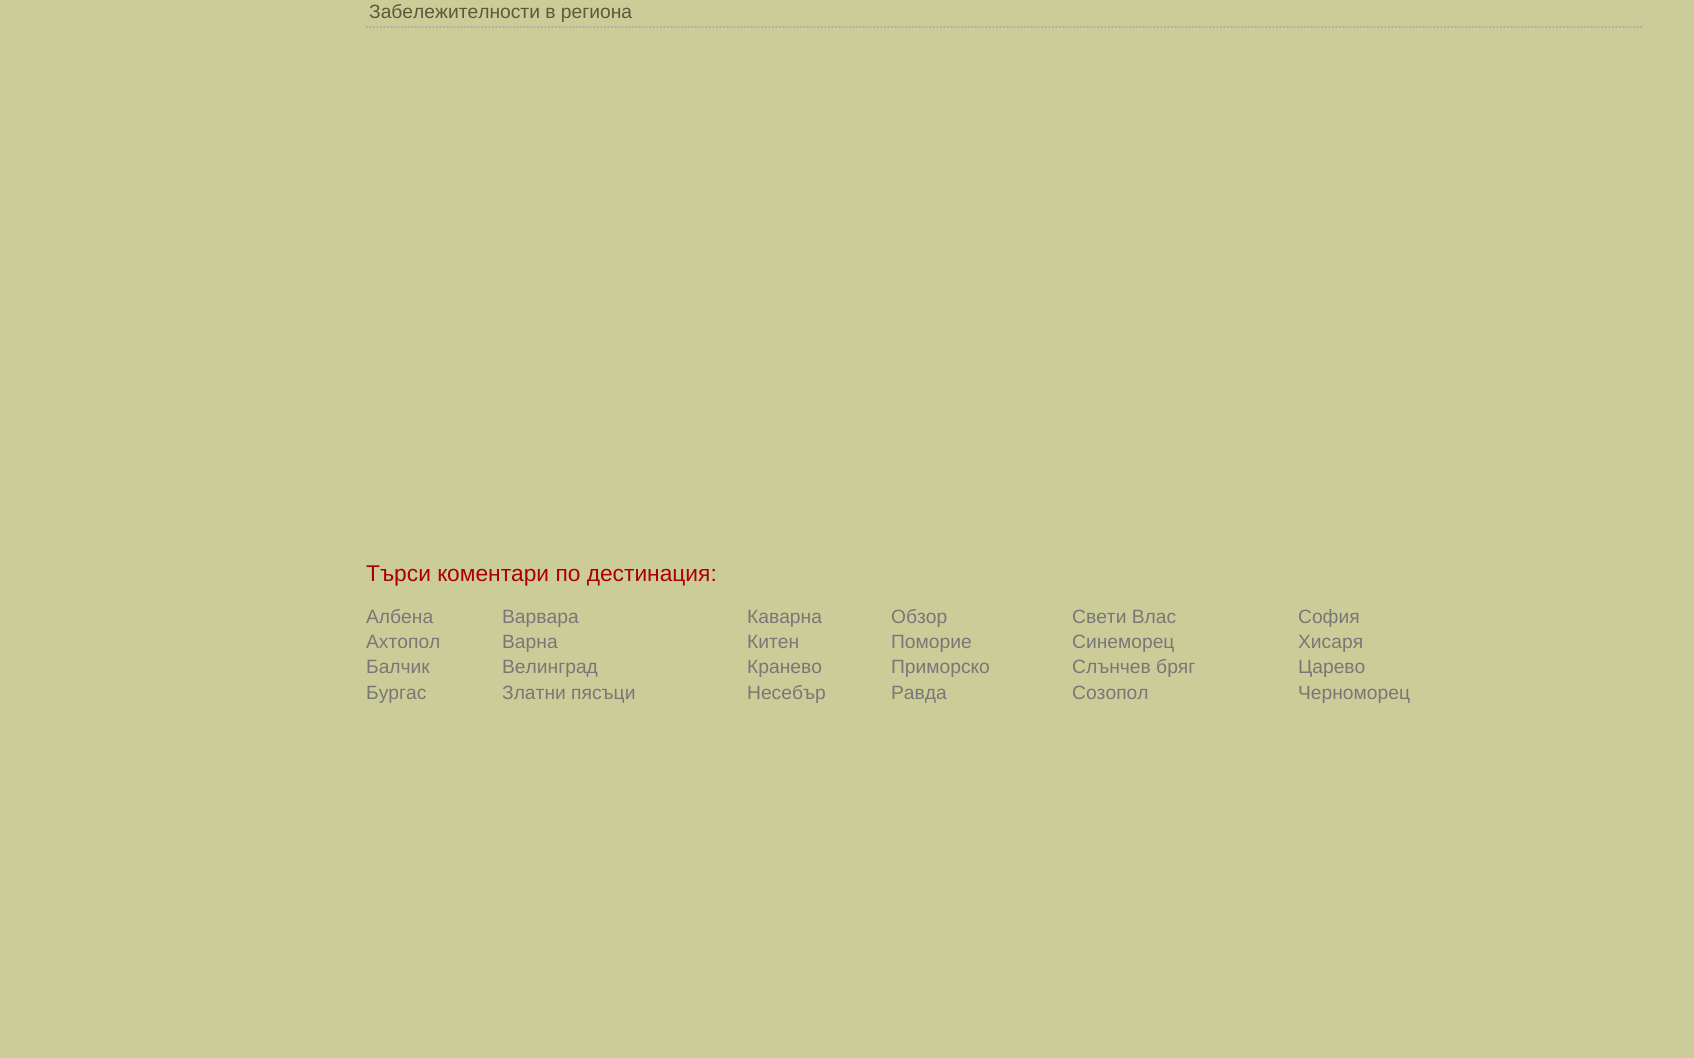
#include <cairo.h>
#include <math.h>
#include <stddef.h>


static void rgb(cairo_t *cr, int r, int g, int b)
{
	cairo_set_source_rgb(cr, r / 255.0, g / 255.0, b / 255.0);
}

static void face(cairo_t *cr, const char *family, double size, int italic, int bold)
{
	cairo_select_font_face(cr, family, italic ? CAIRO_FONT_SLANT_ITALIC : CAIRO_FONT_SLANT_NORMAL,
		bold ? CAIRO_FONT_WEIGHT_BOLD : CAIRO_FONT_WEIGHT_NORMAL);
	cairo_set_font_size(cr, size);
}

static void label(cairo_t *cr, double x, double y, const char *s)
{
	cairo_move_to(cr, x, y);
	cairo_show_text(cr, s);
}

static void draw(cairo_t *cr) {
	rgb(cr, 204, 204, 153);
	cairo_paint(cr);
	cairo_new_path(cr);
	cairo_move_to(cr, 366, 27);
	cairo_line_to(cr, 1643, 27);
	rgb(cr, 170, 170, 170);
	cairo_set_line_width(cr, 1.8);
	cairo_set_dash(cr, (double[]){1.75, 1.75}, 2, 0);
	cairo_stroke(cr);
	face(cr, "Liberation Sans", 19.25, 0, 0);
	rgb(cr, 89, 90, 58);
	label(cr, 369, 18, "Забележителности в региона");
	face(cr, "Liberation Sans", 22.75, 0, 0);
	rgb(cr, 170, 0, 0);
	label(cr, 366, 581, "Търси коментари по дестинация:");
	face(cr, "Liberation Sans", 19.25, 0, 0);
	rgb(cr, 119, 119, 119);
	label(cr, 366, 623, "Албена");
	label(cr, 366, 648, "Ахтопол");
	label(cr, 366, 673, "Балчик");
	label(cr, 366, 699, "Бургас");
	label(cr, 502, 623, "Варвара");
	label(cr, 502, 648, "Варна");
	label(cr, 502, 673, "Велинград");
	label(cr, 502, 699, "Златни пясъци");
	label(cr, 747, 623, "Каварна");
	label(cr, 747, 648, "Китен");
	label(cr, 747, 673, "Кранево");
	label(cr, 747, 699, "Несебър");
	label(cr, 891, 623, "Обзор");
	label(cr, 891, 648, "Поморие");
	label(cr, 891, 673, "Приморско");
	label(cr, 891, 699, "Равда");
	label(cr, 1072, 623, "Свети Влас");
	label(cr, 1072, 648, "Синеморец");
	label(cr, 1072, 673, "Слънчев бряг");
	label(cr, 1072, 699, "Созопол");
	label(cr, 1298, 623, "София");
	label(cr, 1298, 648, "Хисаря");
	label(cr, 1298, 673, "Царево");
	label(cr, 1298, 699, "Черноморец");
}

int main(void) {
	cairo_surface_t *surface = cairo_image_surface_create(CAIRO_FORMAT_RGB24, 1694, 1058);
	cairo_t *cr = cairo_create(surface);
	cairo_font_options_t *options = cairo_font_options_create();
	cairo_font_options_set_hint_metrics(options, CAIRO_HINT_METRICS_OFF);
	cairo_font_options_set_hint_style(options, CAIRO_HINT_STYLE_NONE);
	cairo_set_font_options(cr, options);
	cairo_set_miter_limit(cr, 4);
	draw(cr);
	cairo_surface_write_to_png(surface, "render.png");
	cairo_font_options_destroy(options);
	cairo_destroy(cr);
	cairo_surface_destroy(surface);
	return 0;
}
